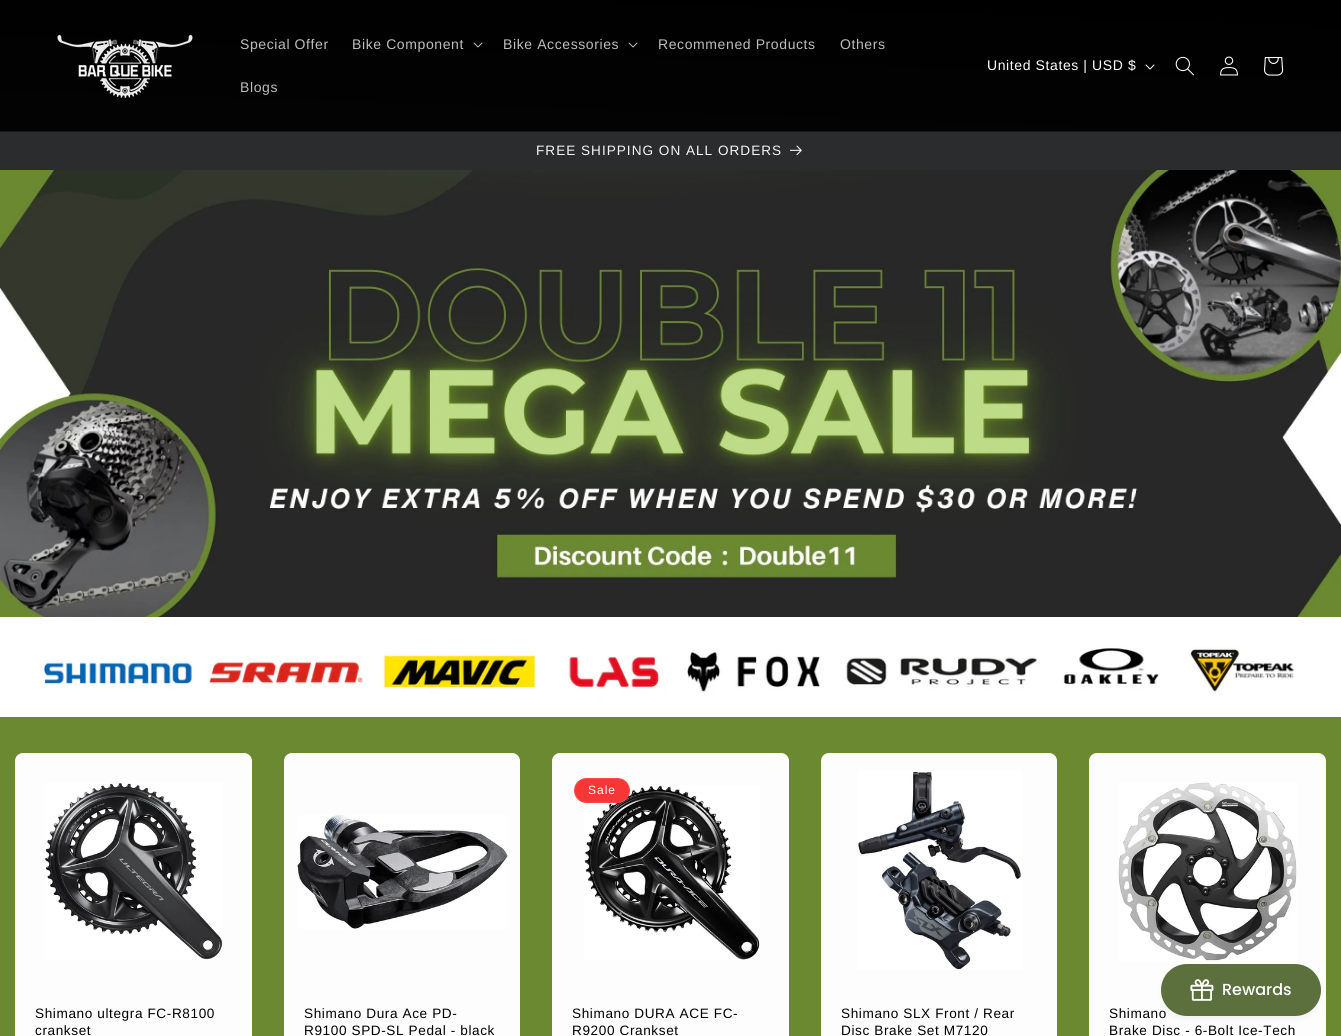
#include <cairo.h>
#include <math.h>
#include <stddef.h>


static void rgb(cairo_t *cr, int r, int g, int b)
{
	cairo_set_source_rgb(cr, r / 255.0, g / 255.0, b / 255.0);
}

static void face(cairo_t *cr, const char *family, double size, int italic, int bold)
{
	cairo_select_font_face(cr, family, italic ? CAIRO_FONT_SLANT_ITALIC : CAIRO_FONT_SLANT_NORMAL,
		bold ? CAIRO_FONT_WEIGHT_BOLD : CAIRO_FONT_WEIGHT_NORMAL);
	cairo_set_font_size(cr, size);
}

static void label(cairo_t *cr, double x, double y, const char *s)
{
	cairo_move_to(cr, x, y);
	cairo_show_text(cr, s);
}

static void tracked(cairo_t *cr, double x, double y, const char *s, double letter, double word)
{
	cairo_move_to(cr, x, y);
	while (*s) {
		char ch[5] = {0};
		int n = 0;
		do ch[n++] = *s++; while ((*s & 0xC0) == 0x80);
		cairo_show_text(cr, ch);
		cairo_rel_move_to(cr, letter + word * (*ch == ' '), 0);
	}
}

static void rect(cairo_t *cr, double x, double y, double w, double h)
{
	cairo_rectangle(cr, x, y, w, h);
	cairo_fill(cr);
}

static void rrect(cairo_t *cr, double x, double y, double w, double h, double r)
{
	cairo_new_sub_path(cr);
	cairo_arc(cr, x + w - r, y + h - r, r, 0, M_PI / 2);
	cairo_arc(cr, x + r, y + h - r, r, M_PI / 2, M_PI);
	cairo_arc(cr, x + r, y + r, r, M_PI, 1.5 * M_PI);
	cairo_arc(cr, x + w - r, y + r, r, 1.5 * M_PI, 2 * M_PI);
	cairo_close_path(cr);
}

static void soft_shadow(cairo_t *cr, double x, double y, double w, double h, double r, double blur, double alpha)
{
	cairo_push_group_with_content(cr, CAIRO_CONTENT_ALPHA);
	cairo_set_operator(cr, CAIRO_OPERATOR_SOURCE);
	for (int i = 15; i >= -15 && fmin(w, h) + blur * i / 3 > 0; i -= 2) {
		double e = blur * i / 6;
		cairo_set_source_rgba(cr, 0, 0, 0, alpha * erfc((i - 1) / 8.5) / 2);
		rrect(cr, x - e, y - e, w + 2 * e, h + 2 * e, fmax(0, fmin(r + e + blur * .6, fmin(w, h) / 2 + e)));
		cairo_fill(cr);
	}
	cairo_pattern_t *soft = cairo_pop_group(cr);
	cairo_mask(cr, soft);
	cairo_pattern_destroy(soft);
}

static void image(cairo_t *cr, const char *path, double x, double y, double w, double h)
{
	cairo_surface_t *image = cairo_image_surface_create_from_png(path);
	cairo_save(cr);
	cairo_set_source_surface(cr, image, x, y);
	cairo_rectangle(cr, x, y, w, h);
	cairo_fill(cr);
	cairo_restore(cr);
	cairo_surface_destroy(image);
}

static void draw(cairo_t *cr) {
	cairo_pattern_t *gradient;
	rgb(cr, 43, 44, 45);
	cairo_paint(cr);
	gradient = cairo_pattern_create_linear(689, -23, 652, 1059);
	cairo_pattern_add_color_stop_rgba(gradient, 0, 0, 0, 0, 1);
	cairo_pattern_add_color_stop_rgba(gradient, 1, 0.078, 0.078, 0.078, 1);
	cairo_set_source(cr, gradient);
	cairo_pattern_destroy(gradient);
	rect(cr, 0, 0, 1341, 131);
	rgb(cr, 23, 23, 23);
	rect(cr, 0, 131, 1341, 1);
	image(cr, "image0.png", 57, 34, 136, 65);
	face(cr, "Liberation Sans", 14, 0, 0);
	rgb(cr, 190, 190, 190);
	tracked(cr, 240, 49, "Special Offer", 0.6, 0);
	tracked(cr, 352, 49, "Bike Component", 0.6, 0);
	image(cr, "image1.png", 473, 42, 10, 6);
	tracked(cr, 503, 49, "Bike Accessories", 0.6, 0);
	image(cr, "image1.png", 628, 42, 10, 6);
	tracked(cr, 658, 49, "Recommened Products", 0.6, 0);
	tracked(cr, 840, 49, "Others", 0.6, 0);
	tracked(cr, 240, 92, "Blogs", 0.6, 0);
	rgb(cr, 255, 255, 255);
	tracked(cr, 987, 70, "United States | USD $", 0.6, 0);
	image(cr, "image2.png", 1145, 64, 10, 6);
	image(cr, "image3.png", 1175, 56, 19, 20);
	image(cr, "image4.png", 1220, 56, 18, 20);
	image(cr, "image5.png", 1264, 57, 20, 19);
	face(cr, "Liberation Sans", 13.6, 0, 0);
	rgb(cr, 244, 244, 244);
	tracked(cr, 536, 155, "FREE SHIPPING ON ALL ORDERS", 1, 0);
	image(cr, "image6.png", 790, 145, 12, 11);
	image(cr, "image7.png", 0, 170, 1341, 447);
	image(cr, "image8.png", 0, 617, 1341, 100);
	rgb(cr, 107, 137, 49);
	rect(cr, 0, 717, 1341, 319);
	rgb(cr, 253, 253, 253);
	rrect(cr, 15, 753, 237, 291, 8);
	cairo_fill(cr);
	image(cr, "image9.png", 45, 782, 178, 178);
	rgb(cr, 0, 0, 0);
	tracked(cr, 35, 1018, "Shimano ultegra FC-R8100", 0.6, 0);
	tracked(cr, 35, 1035, "crankset", 0.6, 0);
	rgb(cr, 253, 253, 253);
	rrect(cr, 284, 753, 236, 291, 8);
	cairo_fill(cr);
	image(cr, "image10.png", 297, 815, 211, 114);
	rgb(cr, 0, 0, 0);
	tracked(cr, 304, 1018, "Shimano Dura Ace PD-", 0.6, 0);
	tracked(cr, 304, 1035, "R9100 SPD-SL Pedal - black", 0.6, 0);
	rgb(cr, 253, 253, 253);
	rrect(cr, 552, 753, 237, 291, 8);
	cairo_fill(cr);
	image(cr, "image11.png", 584, 785, 176, 175);
	rgb(cr, 249, 54, 54);
	rrect(cr, 574, 778, 56, 25, 12.5);
	cairo_fill(cr);
	rrect(cr, 574.5, 778.5, 55, 24, 12);
	cairo_set_source_rgba(cr, 1, 1, 1, 0.1);
	cairo_set_line_width(cr, 1);
	cairo_stroke(cr);
	face(cr, "Liberation Sans", 12, 0, 0);
	rgb(cr, 255, 255, 255);
	tracked(cr, 588, 794, "Sale", 1, 0);
	face(cr, "Liberation Sans", 13.6, 0, 0);
	rgb(cr, 0, 0, 0);
	tracked(cr, 572, 1018, "Shimano DURA ACE FC-", 0.6, 0);
	tracked(cr, 572, 1035, "R9200 Crankset", 0.6, 0);
	rgb(cr, 253, 253, 253);
	rrect(cr, 821, 753, 236, 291, 8);
	cairo_fill(cr);
	image(cr, "image12.png", 858, 771, 164, 199);
	rgb(cr, 0, 0, 0);
	tracked(cr, 841, 1018, "Shimano SLX Front / Rear", 0.6, 0);
	tracked(cr, 841, 1035, "Disc Brake Set M7120", 0.6, 0);
	rgb(cr, 253, 253, 253);
	rrect(cr, 1089, 753, 237, 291, 8);
	cairo_fill(cr);
	image(cr, "image13.png", 1118, 782, 179, 179);
	rgb(cr, 0, 0, 0);
	tracked(cr, 1109, 1018, "Shimano", 0.6, 0);
	tracked(cr, 1109, 1035, "Brake Disc - 6-Bolt Ice-Tech", 0.6, 0);
	rgb(cr, 68, 68, 68);
	soft_shadow(cr, 1163, 970, 156, 48, 24, 4, 0.08);
	rgb(cr, 92, 112, 61);
	rrect(cr, 1161, 964, 160, 52, 26);
	cairo_fill(cr);
	image(cr, "image14.png", 1190, 979, 24, 22);
	face(cr, "Poppins Medium", 16, 0, 0);
	rgb(cr, 255, 255, 255);
	label(cr, 1222, 995, "Rewards");
}

int main(void) {
	cairo_surface_t *surface = cairo_image_surface_create(CAIRO_FORMAT_RGB24, 1341, 1036);
	cairo_t *cr = cairo_create(surface);
	cairo_font_options_t *options = cairo_font_options_create();
	cairo_font_options_set_hint_metrics(options, CAIRO_HINT_METRICS_OFF);
	cairo_font_options_set_hint_style(options, CAIRO_HINT_STYLE_NONE);
	cairo_set_font_options(cr, options);
	cairo_set_miter_limit(cr, 4);
	draw(cr);
	cairo_surface_write_to_png(surface, "render.png");
	cairo_font_options_destroy(options);
	cairo_destroy(cr);
	cairo_surface_destroy(surface);
	return 0;
}
